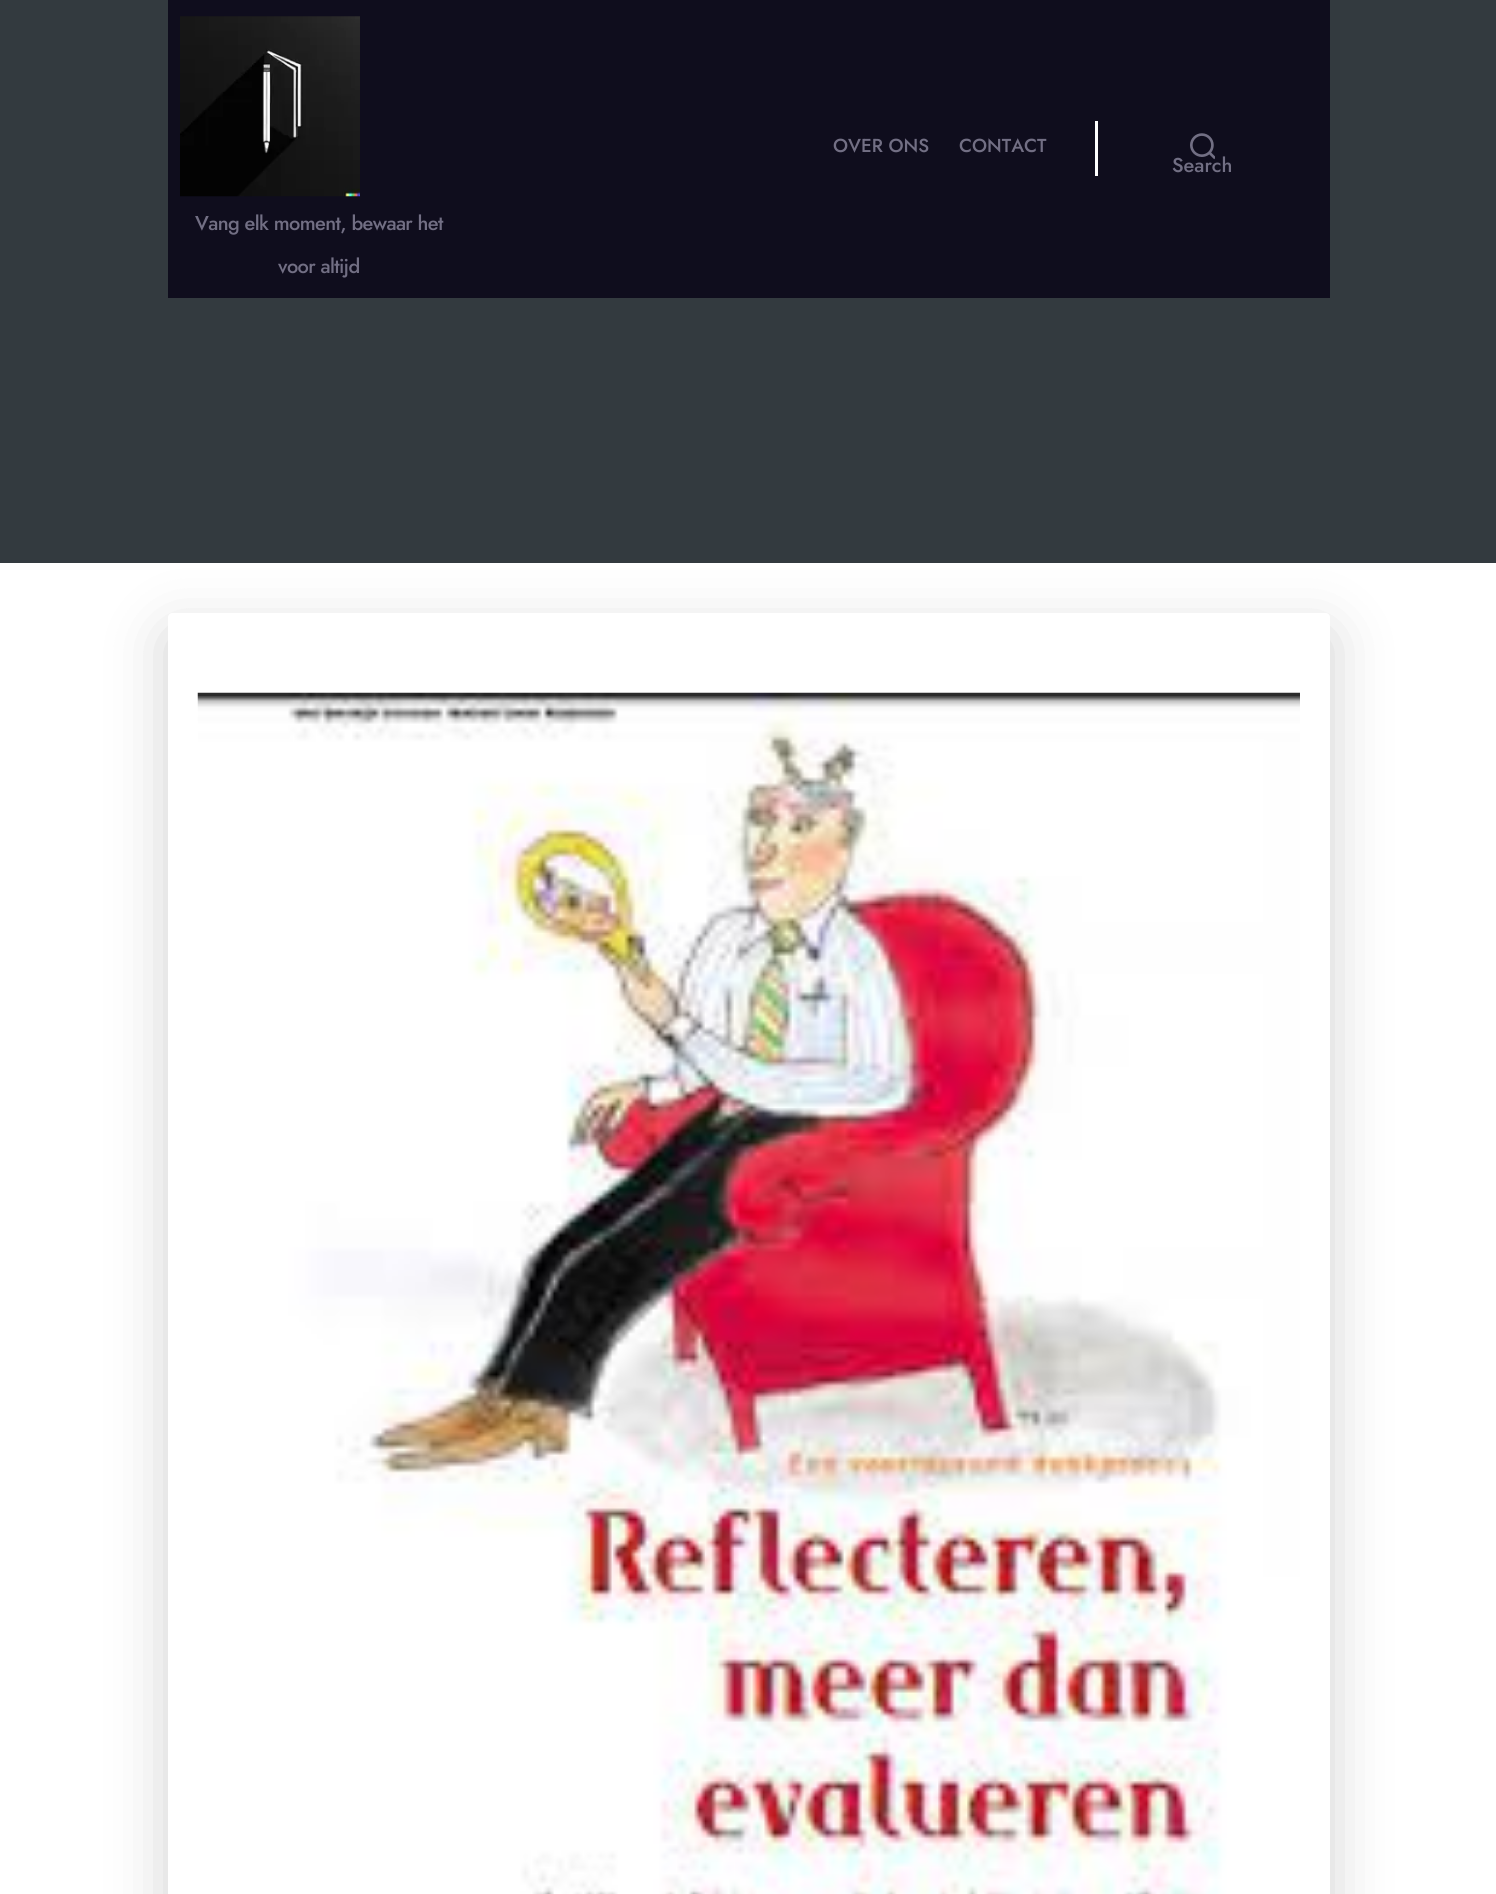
#include <cairo.h>
#include <math.h>
#include <stddef.h>


static void rgb(cairo_t *cr, int r, int g, int b)
{
	cairo_set_source_rgb(cr, r / 255.0, g / 255.0, b / 255.0);
}

static void face(cairo_t *cr, const char *family, double size, int italic, int bold)
{
	cairo_select_font_face(cr, family, italic ? CAIRO_FONT_SLANT_ITALIC : CAIRO_FONT_SLANT_NORMAL,
		bold ? CAIRO_FONT_WEIGHT_BOLD : CAIRO_FONT_WEIGHT_NORMAL);
	cairo_set_font_size(cr, size);
}

static void label(cairo_t *cr, double x, double y, const char *s)
{
	cairo_move_to(cr, x, y);
	cairo_show_text(cr, s);
}

static void tracked(cairo_t *cr, double x, double y, const char *s, double letter, double word)
{
	cairo_move_to(cr, x, y);
	while (*s) {
		char ch[5] = {0};
		int n = 0;
		do ch[n++] = *s++; while ((*s & 0xC0) == 0x80);
		cairo_show_text(cr, ch);
		cairo_rel_move_to(cr, letter + word * (*ch == ' '), 0);
	}
}

static void rect(cairo_t *cr, double x, double y, double w, double h)
{
	cairo_rectangle(cr, x, y, w, h);
	cairo_fill(cr);
}

static void rrect(cairo_t *cr, double x, double y, double w, double h, double r)
{
	cairo_new_sub_path(cr);
	cairo_arc(cr, x + w - r, y + h - r, r, 0, M_PI / 2);
	cairo_arc(cr, x + r, y + h - r, r, M_PI / 2, M_PI);
	cairo_arc(cr, x + r, y + r, r, M_PI, 1.5 * M_PI);
	cairo_arc(cr, x + w - r, y + r, r, 1.5 * M_PI, 2 * M_PI);
	cairo_close_path(cr);
}

static void soft_shadow(cairo_t *cr, double x, double y, double w, double h, double r, double blur, double alpha)
{
	cairo_push_group_with_content(cr, CAIRO_CONTENT_ALPHA);
	cairo_set_operator(cr, CAIRO_OPERATOR_SOURCE);
	for (int i = 15; i >= -15 && fmin(w, h) + blur * i / 3 > 0; i -= 2) {
		double e = blur * i / 6;
		cairo_set_source_rgba(cr, 0, 0, 0, alpha * erfc((i - 1) / 8.5) / 2);
		rrect(cr, x - e, y - e, w + 2 * e, h + 2 * e, fmax(0, fmin(r + e + blur * .6, fmin(w, h) / 2 + e)));
		cairo_fill(cr);
	}
	cairo_pattern_t *soft = cairo_pop_group(cr);
	cairo_mask(cr, soft);
	cairo_pattern_destroy(soft);
}

static void image(cairo_t *cr, const char *path, double x, double y, double w, double h)
{
	cairo_surface_t *image = cairo_image_surface_create_from_png(path);
	cairo_save(cr);
	cairo_set_source_surface(cr, image, x, y);
	cairo_rectangle(cr, x, y, w, h);
	cairo_fill(cr);
	cairo_restore(cr);
	cairo_surface_destroy(image);
}

static void draw(cairo_t *cr) {
	rgb(cr, 255, 255, 255);
	cairo_paint(cr);
	rgb(cr, 51, 58, 63);
	rect(cr, 0, 0, 1496, 563);
	cairo_save(cr);
	cairo_set_fill_rule(cr, CAIRO_FILL_RULE_EVEN_ODD);
	cairo_new_path(cr);
	cairo_move_to(cr, 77, 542);
	cairo_line_to(cr, 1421, 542);
	cairo_line_to(cr, 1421, 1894);
	cairo_line_to(cr, 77, 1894);
	cairo_close_path(cr);
	cairo_move_to(cr, 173, 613);
	cairo_line_to(cr, 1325, 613);
	cairo_curve_to(cr, 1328, 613, 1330, 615, 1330, 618);
	cairo_line_to(cr, 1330, 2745);
	cairo_curve_to(cr, 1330, 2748, 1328, 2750, 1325, 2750);
	cairo_line_to(cr, 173, 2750);
	cairo_curve_to(cr, 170, 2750, 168, 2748, 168, 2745);
	cairo_line_to(cr, 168, 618);
	cairo_curve_to(cr, 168, 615, 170, 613, 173, 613);
	cairo_close_path(cr);
	cairo_clip(cr);
	rgb(cr, 0, 0, 0);
	soft_shadow(cr, 168, 633, 1162, 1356, 5, 30, 0.18);
	cairo_restore(cr);
	image(cr, "image0.png", 197, 692, 1103, 1202);
	rgb(cr, 15, 13, 29);
	rect(cr, 168, 0, 1162, 298);
	face(cr, "Jost Medium", 18.75, 0, 0);
	rgb(cr, 114, 111, 132);
	label(cr, 833, 152, "OVER ONS");
	label(cr, 959, 152, "CONTACT");
	rgb(cr, 255, 255, 255);
	rect(cr, 1095, 121, 3, 55);
	face(cr, "Jost Medium", 20, 0, 0);
	rgb(cr, 114, 111, 132);
	label(cr, 1172, 172, "Search");
	image(cr, "image1.png", 1190, 133, 25, 27);
	image(cr, "image2.png", 180, 16, 180, 181);
	tracked(cr, 195, 230, "Vang elk moment, bewaar het", -0.6, 0);
	tracked(cr, 278, 273, "voor altijd", -0.6, 0);
}

int main(void) {
	cairo_surface_t *surface = cairo_image_surface_create(CAIRO_FORMAT_RGB24, 1496, 1894);
	cairo_t *cr = cairo_create(surface);
	cairo_font_options_t *options = cairo_font_options_create();
	cairo_font_options_set_hint_metrics(options, CAIRO_HINT_METRICS_OFF);
	cairo_font_options_set_hint_style(options, CAIRO_HINT_STYLE_NONE);
	cairo_set_font_options(cr, options);
	cairo_set_miter_limit(cr, 4);
	draw(cr);
	cairo_surface_write_to_png(surface, "render.png");
	cairo_font_options_destroy(options);
	cairo_destroy(cr);
	cairo_surface_destroy(surface);
	return 0;
}
